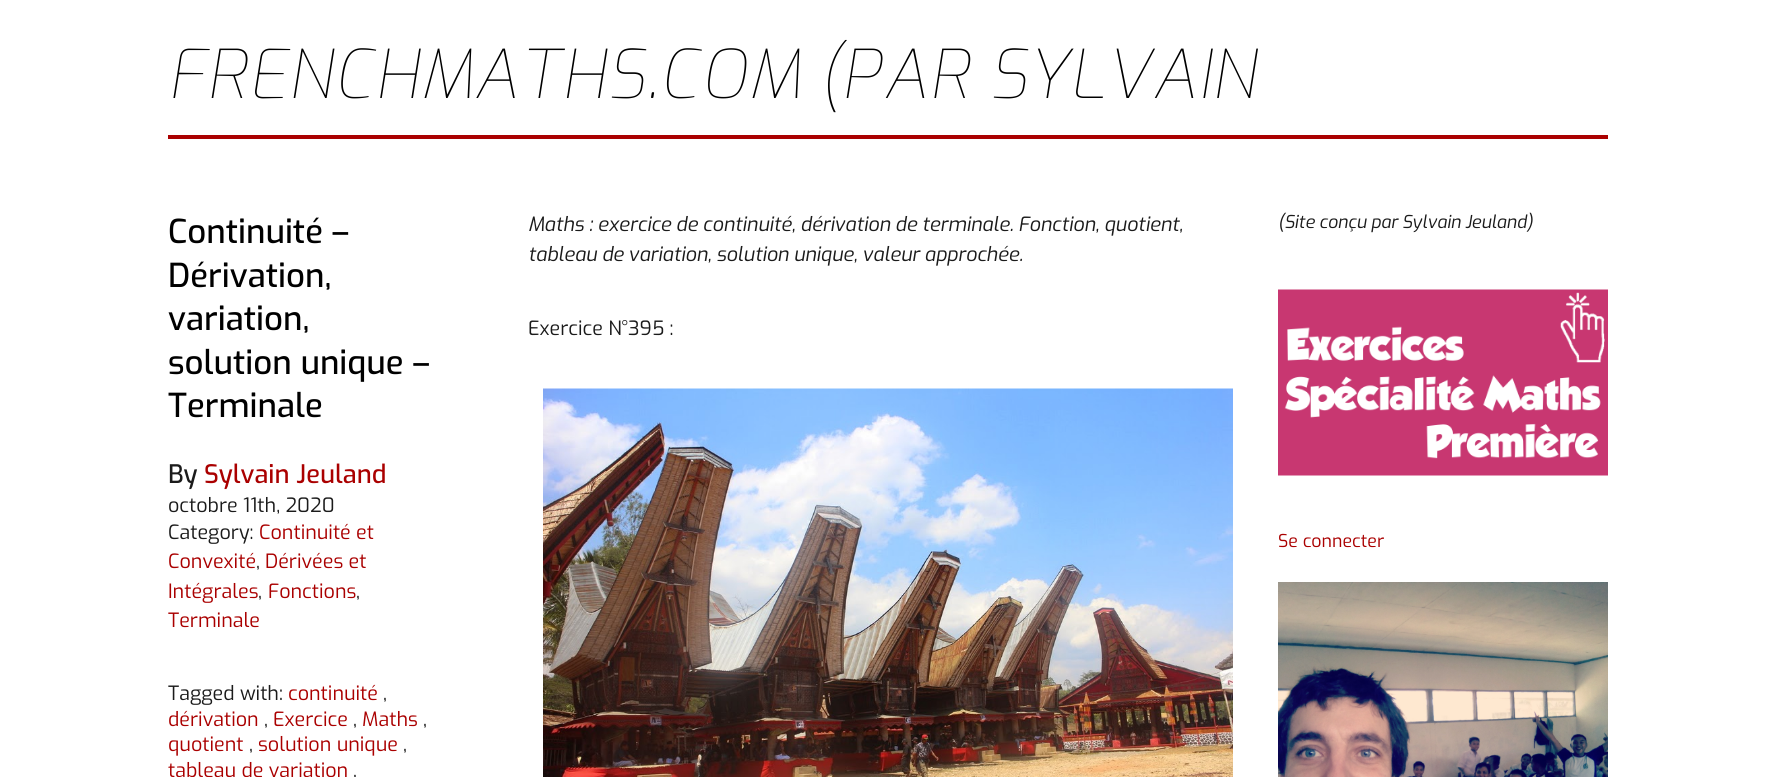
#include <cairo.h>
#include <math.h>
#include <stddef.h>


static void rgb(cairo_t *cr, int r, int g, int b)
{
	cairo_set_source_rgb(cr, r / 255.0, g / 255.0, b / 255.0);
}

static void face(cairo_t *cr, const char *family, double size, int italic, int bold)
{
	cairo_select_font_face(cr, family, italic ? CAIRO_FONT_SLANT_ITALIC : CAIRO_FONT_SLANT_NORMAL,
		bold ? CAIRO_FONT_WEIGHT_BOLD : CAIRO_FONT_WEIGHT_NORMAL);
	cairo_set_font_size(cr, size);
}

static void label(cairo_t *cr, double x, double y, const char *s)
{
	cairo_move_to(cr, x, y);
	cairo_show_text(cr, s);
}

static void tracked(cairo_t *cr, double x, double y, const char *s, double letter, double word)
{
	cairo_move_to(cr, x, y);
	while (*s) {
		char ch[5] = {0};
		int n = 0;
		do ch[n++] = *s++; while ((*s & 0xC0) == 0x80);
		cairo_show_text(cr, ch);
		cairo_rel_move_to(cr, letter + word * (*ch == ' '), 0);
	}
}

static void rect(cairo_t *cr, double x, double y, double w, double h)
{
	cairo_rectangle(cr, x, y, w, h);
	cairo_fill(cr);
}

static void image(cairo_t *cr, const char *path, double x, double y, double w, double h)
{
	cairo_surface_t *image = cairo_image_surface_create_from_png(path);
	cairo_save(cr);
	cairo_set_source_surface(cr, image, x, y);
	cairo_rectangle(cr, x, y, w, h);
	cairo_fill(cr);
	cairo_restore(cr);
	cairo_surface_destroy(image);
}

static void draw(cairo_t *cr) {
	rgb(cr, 255, 255, 255);
	cairo_paint(cr);
	rgb(cr, 170, 0, 0);
	rect(cr, 168, 135, 1440, 4);
	face(cr, "Exo Thin", 67.5, 1, 0);
	rgb(cr, 0, 0, 0);
	tracked(cr, 168, 98, "FRENCHMATHS.COM (PAR SYLVAIN", 1.5, 0);
	face(cr, "Exo Medium", 33, 0, 0);
	label(cr, 168, 243, "Continuité –");
	label(cr, 168, 287, "Dérivation,");
	label(cr, 168, 330, "variation,");
	label(cr, 168, 374, "solution unique –");
	label(cr, 168, 417, "Terminale");
	face(cr, "Exo Medium", 25.5, 0, 0);
	rgb(cr, 27, 27, 27);
	label(cr, 168, 483, "By");
	rgb(cr, 170, 0, 0);
	label(cr, 204, 483, "Sylvain Jeuland");
	face(cr, "Exo", 19.7, 0, 0);
	rgb(cr, 27, 27, 27);
	label(cr, 168, 512, "octobre 11th, 2020");
	label(cr, 168, 539, "Category:");
	rgb(cr, 170, 0, 0);
	label(cr, 259, 539, "Continuité et");
	label(cr, 168, 568, "Convexité");
	rgb(cr, 27, 27, 27);
	label(cr, 256, 568, ",");
	rgb(cr, 170, 0, 0);
	label(cr, 265, 568, "Dérivées et");
	label(cr, 168, 598, "Intégrales");
	rgb(cr, 27, 27, 27);
	label(cr, 258, 598, ",");
	rgb(cr, 170, 0, 0);
	label(cr, 268, 598, "Fonctions");
	rgb(cr, 27, 27, 27);
	label(cr, 356, 598, ",");
	rgb(cr, 170, 0, 0);
	label(cr, 168, 627, "Terminale");
	rgb(cr, 27, 27, 27);
	label(cr, 168, 700, "Tagged with:");
	rgb(cr, 170, 0, 0);
	label(cr, 288, 700, "continuité");
	rgb(cr, 27, 27, 27);
	label(cr, 383, 700, ",");
	rgb(cr, 170, 0, 0);
	label(cr, 168, 726, "dérivation");
	rgb(cr, 27, 27, 27);
	label(cr, 264, 726, ",");
	rgb(cr, 170, 0, 0);
	label(cr, 273, 726, "Exercice");
	rgb(cr, 27, 27, 27);
	label(cr, 353, 726, ",");
	rgb(cr, 170, 0, 0);
	label(cr, 362, 726, "Maths");
	rgb(cr, 27, 27, 27);
	label(cr, 423, 726, ",");
	rgb(cr, 170, 0, 0);
	label(cr, 168, 751, "quotient");
	rgb(cr, 27, 27, 27);
	label(cr, 249, 751, ",");
	rgb(cr, 170, 0, 0);
	label(cr, 258, 751, "solution unique");
	rgb(cr, 27, 27, 27);
	label(cr, 403, 751, ",");
	rgb(cr, 170, 0, 0);
	label(cr, 168, 777, "tableau de variation");
	rgb(cr, 27, 27, 27);
	label(cr, 353, 777, ",");
	face(cr, "Exo", 19.7, 1, 0);
	label(cr, 528, 231, "Maths : exercice de continuité, dérivation de terminale. Fonction, quotient,");
	label(cr, 528, 261, "tableau de variation, solution unique, valeur approchée.");
	face(cr, "Exo", 19.7, 0, 0);
	label(cr, 528, 335, "Exercice N°395 :");
	image(cr, "image0.png", 543, 388, 690, 389);
	face(cr, "Exo", 17.75, 1, 0);
	label(cr, 1278, 228, "(Site conçu par Sylvain Jeuland)");
	image(cr, "image1.png", 1278, 289, 330, 187);
	face(cr, "Exo", 17.75, 0, 0);
	rgb(cr, 170, 0, 0);
	label(cr, 1278, 547, "Se connecter");
	image(cr, "image2.png", 1278, 582, 330, 195);
}

int main(void) {
	cairo_surface_t *surface = cairo_image_surface_create(CAIRO_FORMAT_RGB24, 1775, 777);
	cairo_t *cr = cairo_create(surface);
	cairo_font_options_t *options = cairo_font_options_create();
	cairo_font_options_set_hint_metrics(options, CAIRO_HINT_METRICS_OFF);
	cairo_font_options_set_hint_style(options, CAIRO_HINT_STYLE_NONE);
	cairo_set_font_options(cr, options);
	cairo_set_miter_limit(cr, 4);
	draw(cr);
	cairo_surface_write_to_png(surface, "render.png");
	cairo_font_options_destroy(options);
	cairo_destroy(cr);
	cairo_surface_destroy(surface);
	return 0;
}
